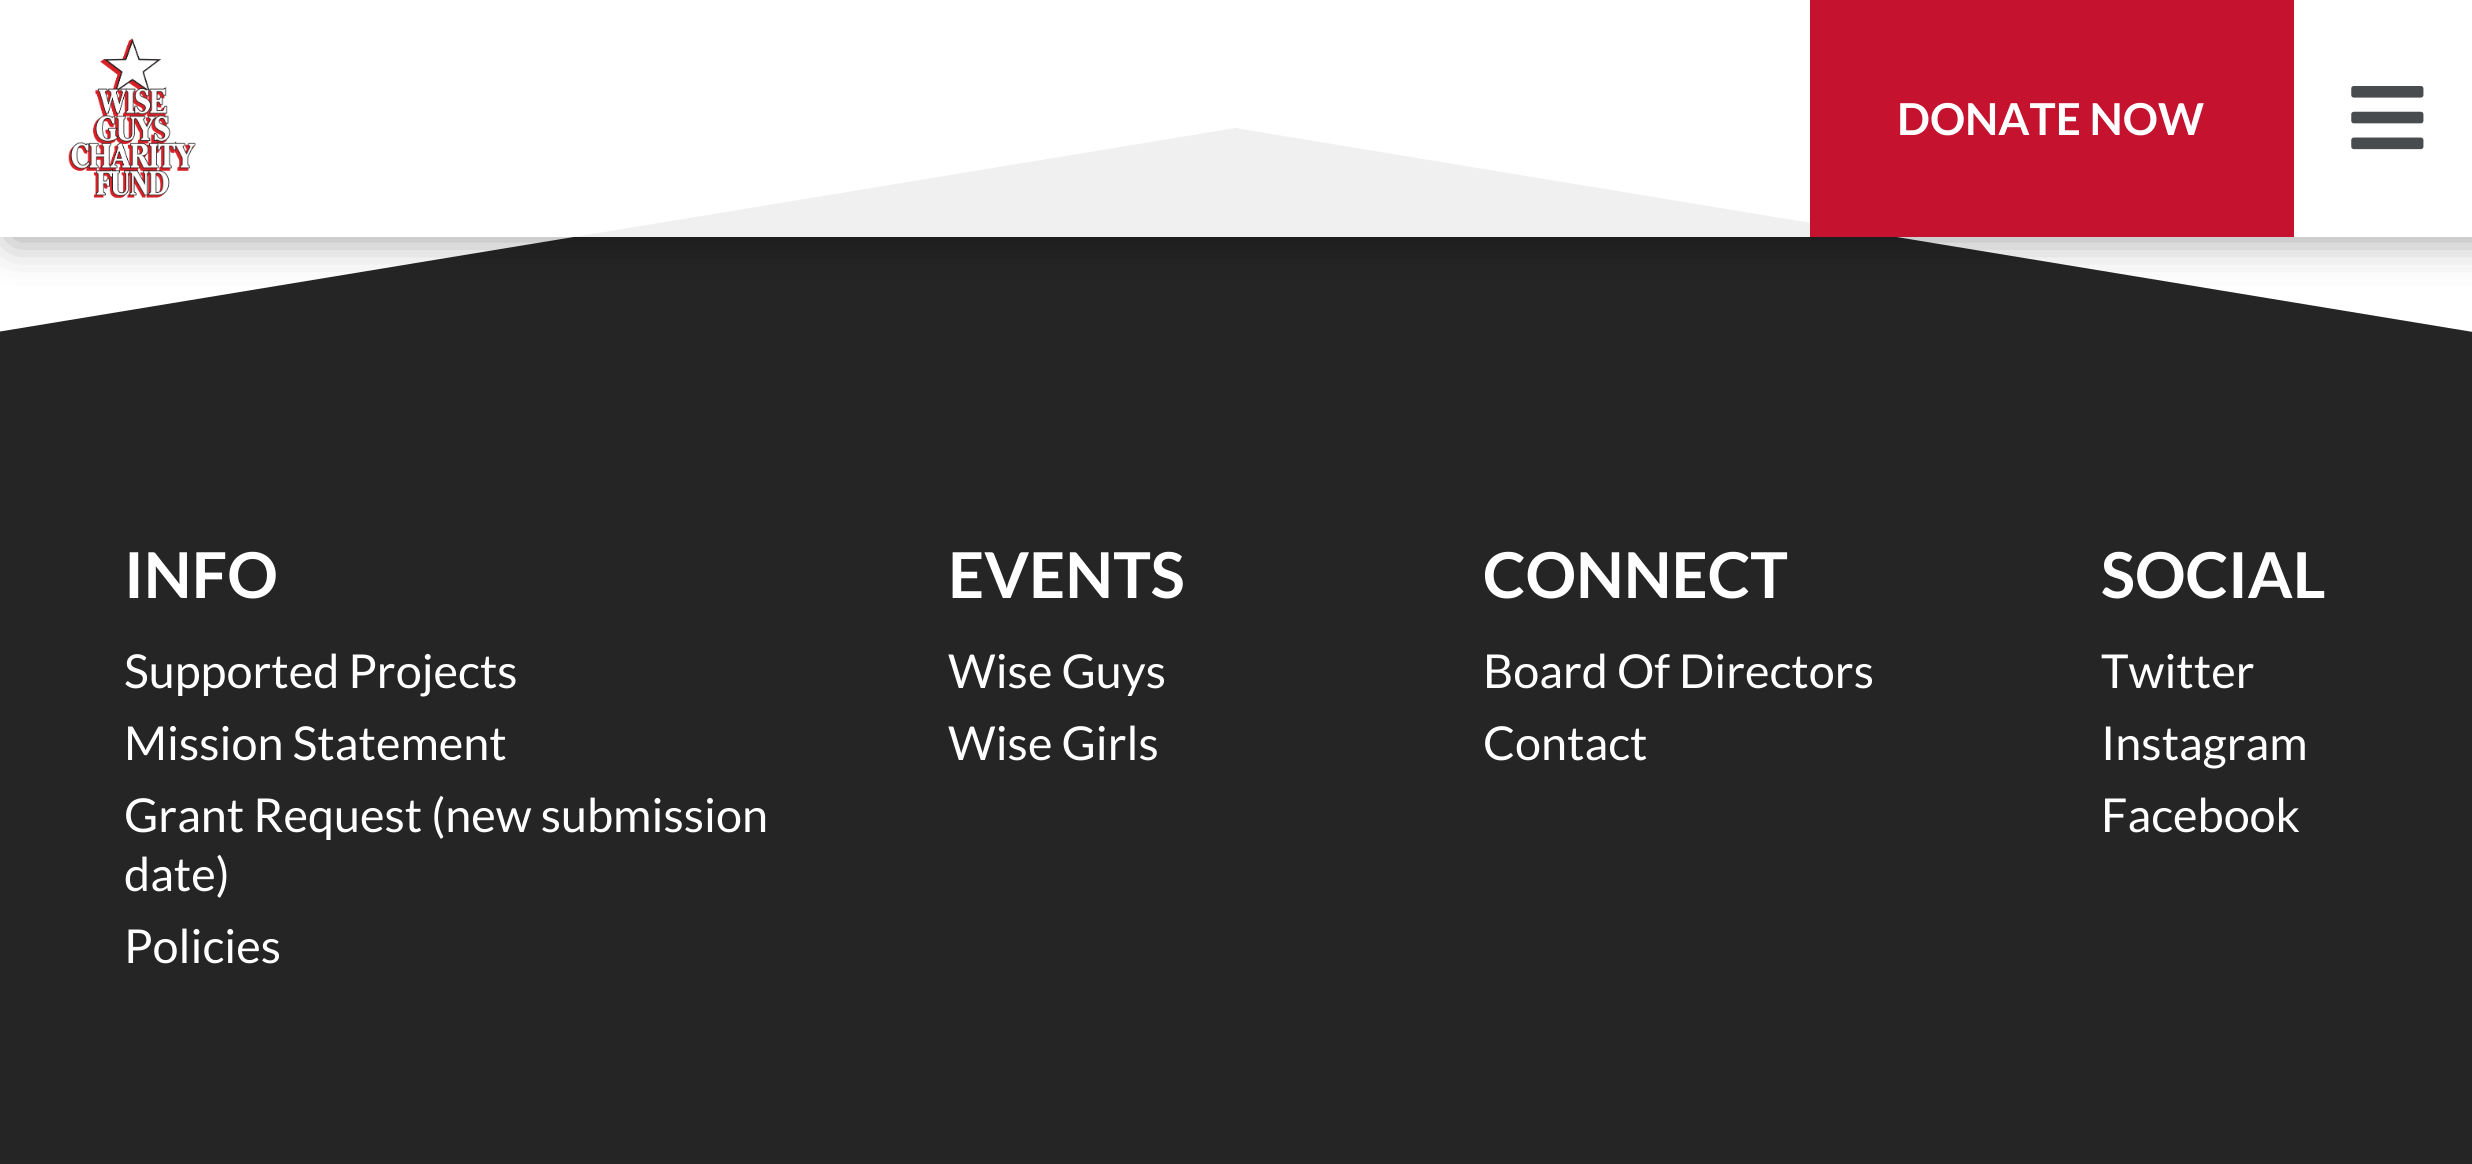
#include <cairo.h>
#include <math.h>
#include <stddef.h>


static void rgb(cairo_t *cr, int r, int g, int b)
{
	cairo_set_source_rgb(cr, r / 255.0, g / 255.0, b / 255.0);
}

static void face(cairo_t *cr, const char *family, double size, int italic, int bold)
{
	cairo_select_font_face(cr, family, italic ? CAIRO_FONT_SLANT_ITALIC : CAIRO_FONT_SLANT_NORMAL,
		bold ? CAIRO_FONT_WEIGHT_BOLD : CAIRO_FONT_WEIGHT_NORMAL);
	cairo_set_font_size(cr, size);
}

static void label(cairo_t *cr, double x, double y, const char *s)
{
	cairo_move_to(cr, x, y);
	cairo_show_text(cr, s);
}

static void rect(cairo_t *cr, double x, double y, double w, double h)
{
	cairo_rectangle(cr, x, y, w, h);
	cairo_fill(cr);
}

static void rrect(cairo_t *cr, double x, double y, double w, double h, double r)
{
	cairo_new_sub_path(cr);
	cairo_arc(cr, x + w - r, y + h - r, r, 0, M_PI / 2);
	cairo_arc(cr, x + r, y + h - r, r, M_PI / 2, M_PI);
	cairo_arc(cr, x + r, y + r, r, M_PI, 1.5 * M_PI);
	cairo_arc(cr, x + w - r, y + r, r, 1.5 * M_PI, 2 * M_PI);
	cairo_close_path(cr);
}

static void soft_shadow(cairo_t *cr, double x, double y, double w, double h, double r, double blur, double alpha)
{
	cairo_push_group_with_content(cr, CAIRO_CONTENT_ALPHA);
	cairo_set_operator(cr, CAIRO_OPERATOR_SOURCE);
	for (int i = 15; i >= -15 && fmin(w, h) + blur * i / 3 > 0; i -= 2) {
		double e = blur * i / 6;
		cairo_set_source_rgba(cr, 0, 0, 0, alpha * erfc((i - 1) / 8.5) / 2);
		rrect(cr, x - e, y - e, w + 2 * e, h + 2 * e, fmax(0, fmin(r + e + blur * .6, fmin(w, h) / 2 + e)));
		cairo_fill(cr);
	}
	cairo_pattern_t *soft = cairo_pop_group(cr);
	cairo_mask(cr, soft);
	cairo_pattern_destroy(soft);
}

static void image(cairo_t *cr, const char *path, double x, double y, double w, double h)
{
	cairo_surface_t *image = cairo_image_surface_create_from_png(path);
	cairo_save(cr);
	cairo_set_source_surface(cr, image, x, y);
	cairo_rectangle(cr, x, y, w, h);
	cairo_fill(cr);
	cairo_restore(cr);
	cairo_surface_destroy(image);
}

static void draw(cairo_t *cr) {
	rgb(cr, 255, 255, 255);
	cairo_paint(cr);
	cairo_save(cr);
	cairo_rectangle(cr, 0, 124, 2472, 220);
	cairo_clip(cr);
	rgb(cr, 37, 37, 37);
	cairo_new_path(cr);
	cairo_move_to(cr, 1235, 128);
	cairo_line_to(cr, 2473, 332);
	cairo_line_to(cr, 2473, 346);
	cairo_line_to(cr, -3, 346);
	cairo_line_to(cr, -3, 332);
	cairo_close_path(cr);
	cairo_fill(cr);
	cairo_restore(cr);
	cairo_save(cr);
	cairo_set_fill_rule(cr, CAIRO_FILL_RULE_EVEN_ODD);
	cairo_new_path(cr);
	cairo_move_to(cr, 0, 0);
	cairo_line_to(cr, 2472, 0);
	cairo_line_to(cr, 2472, 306);
	cairo_line_to(cr, 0, 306);
	cairo_close_path(cr);
	cairo_move_to(cr, 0, 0);
	cairo_line_to(cr, 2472, 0);
	cairo_line_to(cr, 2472, 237);
	cairo_line_to(cr, 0, 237);
	cairo_close_path(cr);
	cairo_clip(cr);
	rgb(cr, 0, 0, 0);
	soft_shadow(cr, 11, -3, 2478, 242, 0, 22, 0.39);
	cairo_restore(cr);
	cairo_set_source_rgba(cr, 1, 1, 1, 0.93);
	rect(cr, 0, 128, 2472, 109);
	image(cr, "image0.png", 68, 38, 128, 160);
	rgb(cr, 196, 18, 47);
	rect(cr, 1810, 0, 484, 237);
	face(cr, "Lato", 44, 0, 1);
	rgb(cr, 255, 255, 255);
	label(cr, 1897, 135, "DONATE NOW");
	image(cr, "image1.png", 2351, 86, 73, 64);
	rgb(cr, 37, 37, 37);
	rect(cr, 0, 344, 2472, 820);
	face(cr, "Lato", 63.25, 0, 1);
	rgb(cr, 255, 255, 255);
	label(cr, 124, 598, "INFO");
	face(cr, "Lato", 46.75, 0, 0);
	label(cr, 124, 688, "Supported Projects");
	label(cr, 124, 760, "Mission Statement");
	label(cr, 124, 832, "Grant Request (new submission");
	label(cr, 124, 891, "date)");
	label(cr, 124, 963, "Policies");
	face(cr, "Lato", 63.25, 0, 1);
	label(cr, 948, 598, "EVENTS");
	face(cr, "Lato", 46.75, 0, 0);
	label(cr, 948, 688, "Wise Guys");
	label(cr, 948, 760, "Wise Girls");
	face(cr, "Lato", 63.25, 0, 1);
	label(cr, 1483, 598, "CONNECT");
	face(cr, "Lato", 46.75, 0, 0);
	label(cr, 1483, 688, "Board Of Directors");
	label(cr, 1483, 760, "Contact");
	face(cr, "Lato", 63.25, 0, 1);
	label(cr, 2101, 598, "SOCIAL");
	face(cr, "Lato", 46.75, 0, 0);
	label(cr, 2101, 688, "Twitter");
	label(cr, 2101, 760, "Instagram");
	label(cr, 2101, 832, "Facebook");
}

int main(void) {
	cairo_surface_t *surface = cairo_image_surface_create(CAIRO_FORMAT_RGB24, 2472, 1164);
	cairo_t *cr = cairo_create(surface);
	cairo_font_options_t *options = cairo_font_options_create();
	cairo_font_options_set_hint_metrics(options, CAIRO_HINT_METRICS_OFF);
	cairo_font_options_set_hint_style(options, CAIRO_HINT_STYLE_NONE);
	cairo_set_font_options(cr, options);
	cairo_set_miter_limit(cr, 4);
	draw(cr);
	cairo_surface_write_to_png(surface, "render.png");
	cairo_font_options_destroy(options);
	cairo_destroy(cr);
	cairo_surface_destroy(surface);
	return 0;
}
